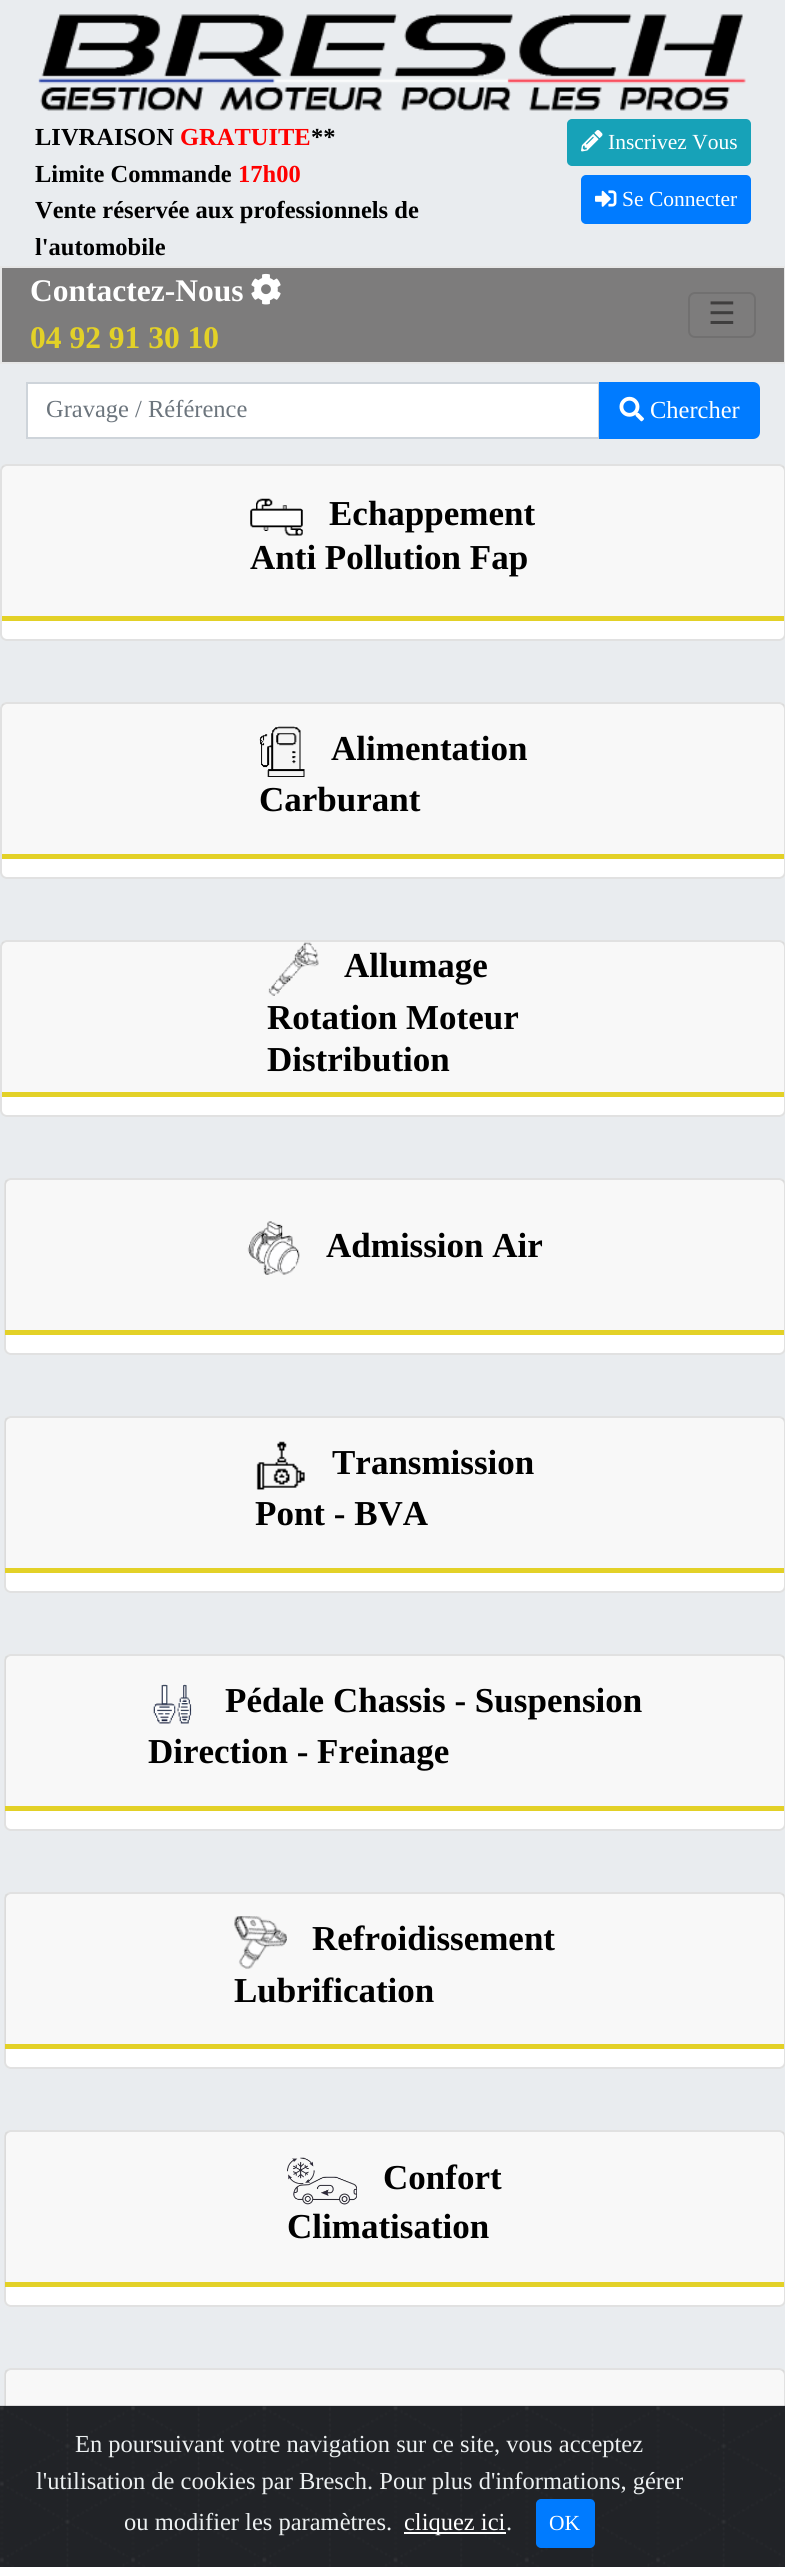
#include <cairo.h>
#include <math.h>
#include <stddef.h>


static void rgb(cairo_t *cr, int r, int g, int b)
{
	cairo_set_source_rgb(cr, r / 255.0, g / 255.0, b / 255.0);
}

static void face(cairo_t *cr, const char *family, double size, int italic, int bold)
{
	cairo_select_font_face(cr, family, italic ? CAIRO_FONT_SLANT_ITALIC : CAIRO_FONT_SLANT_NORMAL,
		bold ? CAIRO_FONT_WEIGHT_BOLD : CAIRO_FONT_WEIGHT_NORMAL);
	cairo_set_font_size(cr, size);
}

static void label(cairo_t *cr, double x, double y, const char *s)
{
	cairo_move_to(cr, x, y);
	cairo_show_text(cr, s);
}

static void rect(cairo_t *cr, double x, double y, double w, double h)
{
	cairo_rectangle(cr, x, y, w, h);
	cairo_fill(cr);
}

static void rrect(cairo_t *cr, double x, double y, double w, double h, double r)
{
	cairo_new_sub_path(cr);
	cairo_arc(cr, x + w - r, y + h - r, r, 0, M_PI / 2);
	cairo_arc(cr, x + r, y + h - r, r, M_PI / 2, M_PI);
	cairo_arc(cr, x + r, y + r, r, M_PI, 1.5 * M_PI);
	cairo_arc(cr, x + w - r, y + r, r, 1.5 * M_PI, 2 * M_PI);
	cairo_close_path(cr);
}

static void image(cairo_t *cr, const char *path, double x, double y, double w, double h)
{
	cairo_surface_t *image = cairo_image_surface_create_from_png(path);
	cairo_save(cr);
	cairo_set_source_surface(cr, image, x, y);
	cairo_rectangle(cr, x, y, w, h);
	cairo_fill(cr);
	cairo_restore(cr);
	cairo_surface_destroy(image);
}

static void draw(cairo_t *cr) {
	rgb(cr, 233, 236, 239);
	cairo_paint(cr);
	image(cr, "image0.png", 38, 14, 708, 97);
	face(cr, "Liberation Serif", 24.5, 0, 1);
	rgb(cr, 0, 0, 0);
	label(cr, 35, 145, "LIVRAISON");
	rgb(cr, 255, 0, 0);
	label(cr, 180, 145, "GRATUITE");
	rgb(cr, 0, 0, 0);
	label(cr, 311, 145, "**");
	label(cr, 35, 182, "Limite Commande");
	rgb(cr, 255, 0, 0);
	label(cr, 238, 182, "17h00");
	rgb(cr, 0, 0, 0);
	label(cr, 35, 218, "Vente réservée aux professionnels de");
	label(cr, 35, 255, "l'automobile");
	rgb(cr, 23, 162, 184);
	rrect(cr, 568, 120, 182, 45, 4);
	cairo_fill_preserve(cr);
	cairo_stroke(cr);
	image(cr, "image1.png", 581, 130, 22, 22);
	face(cr, "Liberation Serif", 21.5, 0, 0);
	rgb(cr, 255, 255, 255);
	label(cr, 608, 149, "Inscrivez Vous");
	rgb(cr, 0, 123, 255);
	rrect(cr, 582, 176, 168, 47, 4);
	cairo_fill_preserve(cr);
	cairo_stroke(cr);
	image(cr, "image2.png", 595, 190, 22, 17);
	rgb(cr, 255, 255, 255);
	label(cr, 622, 206, "Se Connecter");
	rgb(cr, 125, 124, 124);
	cairo_rectangle(cr, 1, 267, 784, 96);
	cairo_fill_preserve(cr);
	rgb(cr, 231, 231, 231);
	cairo_stroke(cr);
	face(cr, "Liberation Serif", 31.5, 0, 1);
	rgb(cr, 255, 255, 255);
	label(cr, 30, 301, "Contactez-Nous");
	image(cr, "image3.png", 251, 273, 30, 32);
	rgb(cr, 227, 209, 39);
	label(cr, 30, 348, "04 92 91 30 10");
	rrect(cr, 689, 293, 66, 44, 6);
	rgb(cr, 113, 112, 112);
	cairo_stroke(cr);
	face(cr, "DejaVu Sans", 31, 0, 0);
	rgb(cr, 63, 62, 62);
	label(cr, 708, 324, "☰");
	rgb(cr, 255, 255, 255);
	cairo_rectangle(cr, 27, 383, 572, 55);
	cairo_fill_preserve(cr);
	rgb(cr, 206, 212, 218);
	cairo_stroke(cr);
	face(cr, "Liberation Serif", 24.5, 0, 0);
	rgb(cr, 108, 117, 125);
	label(cr, 46, 417, "Gravage / Référence");
	rgb(cr, 0, 123, 255);
	cairo_new_path(cr);
	cairo_move_to(cr, 600, 383);
	cairo_line_to(cr, 753, 383);
	cairo_curve_to(cr, 756.5, 383, 759, 385.5, 759, 389);
	cairo_line_to(cr, 759, 432);
	cairo_curve_to(cr, 759, 435.5, 756.5, 438, 753, 438);
	cairo_line_to(cr, 600, 438);
	cairo_close_path(cr);
	cairo_fill_preserve(cr);
	cairo_stroke(cr);
	image(cr, "image4.png", 619, 396, 25, 26);
	rgb(cr, 255, 255, 255);
	label(cr, 650, 418, "Chercher");
	rrect(cr, 0, 464, 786, 177, 7);
	cairo_fill(cr);
	rrect(cr, 1, 465, 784, 175, 6);
	cairo_set_source_rgba(cr, 0, 0, 0, 0.12);
	cairo_stroke(cr);
	cairo_set_source_rgba(cr, 0, 0, 0, 0.03);
	rect(cr, 2, 466, 782, 150);
	rgb(cr, 227, 209, 39);
	rect(cr, 2, 616, 782, 5);
	image(cr, "image5.png", 250, 498, 53, 38);
	face(cr, "Liberation Serif", 35, 0, 1);
	rgb(cr, 0, 0, 0);
	label(cr, 329, 525, "Echappement");
	label(cr, 250, 569, "Anti Pollution Fap");
	rgb(cr, 255, 255, 255);
	rrect(cr, 0, 702, 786, 177, 7);
	cairo_fill(cr);
	rrect(cr, 1, 703, 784, 175, 6);
	cairo_set_source_rgba(cr, 0, 0, 0, 0.12);
	cairo_stroke(cr);
	cairo_set_source_rgba(cr, 0, 0, 0, 0.03);
	rect(cr, 2, 704, 782, 150);
	rgb(cr, 227, 209, 39);
	rect(cr, 2, 854, 782, 5);
	image(cr, "image6.png", 259, 726, 46, 51);
	rgb(cr, 0, 0, 0);
	label(cr, 331, 760, "Alimentation");
	label(cr, 259, 811, "Carburant");
	rgb(cr, 255, 255, 255);
	rrect(cr, 0, 940, 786, 177, 7);
	cairo_fill(cr);
	rrect(cr, 1, 941, 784, 175, 6);
	cairo_set_source_rgba(cr, 0, 0, 0, 0.12);
	cairo_stroke(cr);
	cairo_set_source_rgba(cr, 0, 0, 0, 0.03);
	rect(cr, 2, 942, 782, 150);
	rgb(cr, 227, 209, 39);
	rect(cr, 2, 1092, 782, 5);
	image(cr, "image7.png", 268, 942, 51, 54);
	rgb(cr, 0, 0, 0);
	label(cr, 344, 977, "Allumage");
	label(cr, 267, 1029, "Rotation Moteur");
	label(cr, 267, 1071, "Distribution");
	rgb(cr, 255, 255, 255);
	rrect(cr, 4, 1178, 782, 177, 7);
	cairo_fill(cr);
	rrect(cr, 5, 1179, 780, 175, 6);
	cairo_set_source_rgba(cr, 0, 0, 0, 0.12);
	cairo_stroke(cr);
	cairo_set_source_rgba(cr, 0, 0, 0, 0.03);
	rect(cr, 5, 1180, 779, 150);
	rgb(cr, 227, 209, 39);
	rect(cr, 5, 1330, 779, 5);
	image(cr, "image8.png", 247, 1221, 53, 55);
	rgb(cr, 0, 0, 0);
	label(cr, 326, 1257, "Admission Air");
	rgb(cr, 255, 255, 255);
	rrect(cr, 4, 1416, 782, 177, 7);
	cairo_fill(cr);
	rrect(cr, 5, 1417, 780, 175, 6);
	cairo_set_source_rgba(cr, 0, 0, 0, 0.12);
	cairo_stroke(cr);
	cairo_set_source_rgba(cr, 0, 0, 0, 0.03);
	rect(cr, 5, 1418, 779, 150);
	rgb(cr, 227, 209, 39);
	rect(cr, 5, 1568, 779, 5);
	image(cr, "image9.png", 256, 1441, 49, 49);
	rgb(cr, 0, 0, 0);
	label(cr, 332, 1474, "Transmission");
	label(cr, 255, 1525, "Pont - BVA");
	rgb(cr, 255, 255, 255);
	rrect(cr, 4, 1654, 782, 177, 7);
	cairo_fill(cr);
	rrect(cr, 5, 1655, 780, 175, 6);
	cairo_set_source_rgba(cr, 0, 0, 0, 0.12);
	cairo_stroke(cr);
	cairo_set_source_rgba(cr, 0, 0, 0, 0.03);
	rect(cr, 5, 1656, 779, 150);
	rgb(cr, 227, 209, 39);
	rect(cr, 5, 1806, 779, 5);
	image(cr, "image10.png", 153, 1684, 39, 40);
	rgb(cr, 0, 0, 0);
	label(cr, 225, 1712, "Pédale Chassis - Suspension");
	label(cr, 148, 1763, "Direction - Freinage");
	rgb(cr, 255, 255, 255);
	rrect(cr, 4, 1892, 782, 177, 7);
	cairo_fill(cr);
	rrect(cr, 5, 1893, 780, 175, 6);
	cairo_set_source_rgba(cr, 0, 0, 0, 0.12);
	cairo_stroke(cr);
	cairo_set_source_rgba(cr, 0, 0, 0, 0.03);
	rect(cr, 5, 1894, 779, 150);
	rgb(cr, 227, 209, 39);
	rect(cr, 5, 2044, 779, 5);
	image(cr, "image11.png", 234, 1916, 53, 53);
	rgb(cr, 0, 0, 0);
	label(cr, 312, 1950, "Refroidissement");
	label(cr, 234, 2002, "Lubrification");
	rgb(cr, 255, 255, 255);
	rrect(cr, 4, 2130, 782, 177, 7);
	cairo_fill(cr);
	rrect(cr, 5, 2131, 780, 175, 6);
	cairo_set_source_rgba(cr, 0, 0, 0, 0.12);
	cairo_stroke(cr);
	cairo_set_source_rgba(cr, 0, 0, 0, 0.03);
	rect(cr, 5, 2132, 779, 150);
	rgb(cr, 227, 209, 39);
	rect(cr, 5, 2282, 779, 5);
	image(cr, "image12.png", 287, 2157, 70, 48);
	rgb(cr, 0, 0, 0);
	label(cr, 383, 2189, "Confort");
	label(cr, 287, 2238, "Climatisation");
	rgb(cr, 255, 255, 255);
	rrect(cr, 4, 2368, 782, 177, 7);
	cairo_fill(cr);
	rrect(cr, 5, 2369, 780, 175, 6);
	cairo_set_source_rgba(cr, 0, 0, 0, 0.12);
	cairo_stroke(cr);
	cairo_set_source_rgba(cr, 0, 0, 0, 0.03);
	rect(cr, 5, 2370, 779, 36);
	rgb(cr, 33, 35, 39);
	rect(cr, 0, 2406, 785, 161);
	image(cr, "image13.png", 0, 2405, 785, 162);
	face(cr, "Liberation Serif", 24.5, 0, 0);
	rgb(cr, 236, 240, 241);
	label(cr, 75, 2452, "En poursuivant votre navigation sur ce site, vous acceptez");
	label(cr, 36, 2489, "l'utilisation de cookies par Bresch. Pour plus d'informations, gérer");
	label(cr, 124, 2530, "ou modifier les paramètres.");
	rgb(cr, 255, 255, 255);
	rect(cr, 404, 2532, 102, 2);
	label(cr, 404, 2530, "cliquez ici");
	rgb(cr, 236, 240, 241);
	label(cr, 506, 2530, ".");
	rgb(cr, 0, 123, 255);
	rrect(cr, 537, 2500, 57, 47, 4);
	cairo_fill_preserve(cr);
	cairo_stroke(cr);
	face(cr, "Liberation Serif", 21.5, 0, 0);
	rgb(cr, 255, 255, 255);
	label(cr, 549, 2530, "OK");
}

int main(void) {
	cairo_surface_t *surface = cairo_image_surface_create(CAIRO_FORMAT_RGB24, 785, 2567);
	cairo_t *cr = cairo_create(surface);
	cairo_font_options_t *options = cairo_font_options_create();
	cairo_font_options_set_hint_metrics(options, CAIRO_HINT_METRICS_OFF);
	cairo_font_options_set_hint_style(options, CAIRO_HINT_STYLE_NONE);
	cairo_set_font_options(cr, options);
	cairo_set_miter_limit(cr, 4);
	draw(cr);
	cairo_surface_write_to_png(surface, "render.png");
	cairo_font_options_destroy(options);
	cairo_destroy(cr);
	cairo_surface_destroy(surface);
	return 0;
}
